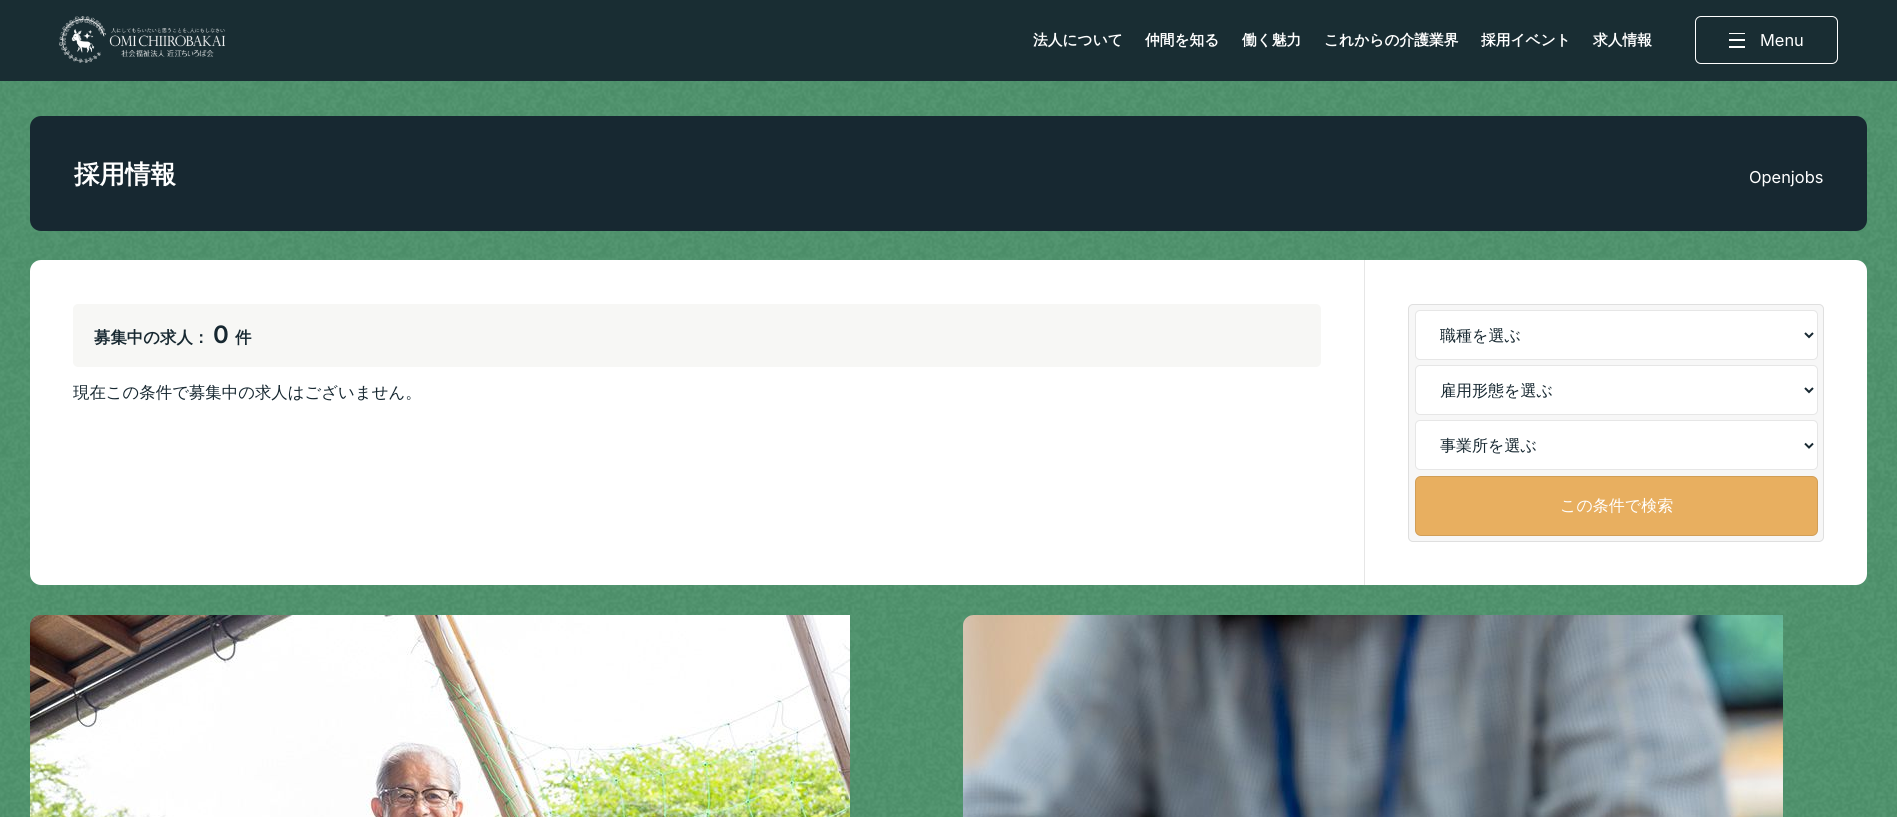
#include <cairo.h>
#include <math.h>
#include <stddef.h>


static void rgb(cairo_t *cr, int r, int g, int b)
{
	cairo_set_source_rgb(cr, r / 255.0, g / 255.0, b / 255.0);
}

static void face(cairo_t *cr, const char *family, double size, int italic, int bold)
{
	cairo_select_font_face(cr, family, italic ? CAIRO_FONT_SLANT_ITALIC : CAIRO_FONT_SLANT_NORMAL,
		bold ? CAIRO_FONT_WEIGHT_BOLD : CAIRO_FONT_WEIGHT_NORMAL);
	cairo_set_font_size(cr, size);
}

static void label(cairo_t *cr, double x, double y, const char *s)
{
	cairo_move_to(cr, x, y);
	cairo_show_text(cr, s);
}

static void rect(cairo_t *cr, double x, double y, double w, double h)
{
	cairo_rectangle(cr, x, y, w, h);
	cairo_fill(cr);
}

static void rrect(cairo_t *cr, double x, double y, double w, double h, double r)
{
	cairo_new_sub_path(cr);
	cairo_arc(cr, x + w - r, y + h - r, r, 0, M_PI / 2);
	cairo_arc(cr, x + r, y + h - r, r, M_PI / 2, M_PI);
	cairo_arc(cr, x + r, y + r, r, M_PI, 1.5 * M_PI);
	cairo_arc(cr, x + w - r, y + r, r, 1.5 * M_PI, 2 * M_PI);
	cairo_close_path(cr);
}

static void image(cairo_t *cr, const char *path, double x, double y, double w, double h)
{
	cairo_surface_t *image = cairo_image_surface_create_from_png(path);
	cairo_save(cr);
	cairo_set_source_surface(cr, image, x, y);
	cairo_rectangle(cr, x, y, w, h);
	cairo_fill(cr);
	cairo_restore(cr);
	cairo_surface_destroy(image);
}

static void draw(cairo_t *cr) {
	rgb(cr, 63, 138, 96);
	cairo_paint(cr);
	image(cr, "image0.png", 0, 0, 1897, 817);
	cairo_set_source_rgba(cr, 0.09, 0.157, 0.192, 0.95);
	rect(cr, 0, 0, 1897, 81);
	image(cr, "image1.png", 59, 16, 167, 47);
	face(cr, "WenQuanYi Zen Hei", 14.75, 0, 1);
	rgb(cr, 255, 255, 255);
	label(cr, 1033, 45, "法人について");
	label(cr, 1145, 45, "仲間を知る");
	label(cr, 1242, 45, "働く魅力");
	label(cr, 1324, 45, "これからの介護業界");
	label(cr, 1481, 45, "採用イベント");
	label(cr, 1593, 45, "求人情報");
	rrect(cr, 1695.5, 16.5, 142, 47, 5.5);
	cairo_set_line_width(cr, 1);
	cairo_stroke(cr);
	rect(cr, 1729, 33, 16, 1);
	rect(cr, 1729, 39, 16, 2);
	rect(cr, 1729, 46, 16, 2);
	face(cr, "Inter", 16.4, 0, 0);
	label(cr, 1760, 46, "Menu");
	rgb(cr, 23, 40, 49);
	rrect(cr, 30, 116, 1837, 115, 11);
	cairo_fill(cr);
	face(cr, "WenQuanYi Zen Hei", 25.5, 0, 1);
	rgb(cr, 255, 255, 255);
	label(cr, 74, 183, "採用情報");
	face(cr, "Inter", 16.4, 0, 0);
	label(cr, 1749, 183, "Openjobs");
	rrect(cr, 30, 260, 1837, 325, 11);
	cairo_fill(cr);
	rgb(cr, 247, 247, 245);
	rrect(cr, 73, 304, 1248, 63, 5);
	cairo_fill(cr);
	face(cr, "WenQuanYi Zen Hei", 16.4, 0, 1);
	rgb(cr, 23, 40, 49);
	label(cr, 94, 343, "募集中の求人：");
	face(cr, "Inter SemiBold", 24, 0, 0);
	label(cr, 213, 343, "0");
	face(cr, "WenQuanYi Zen Hei", 16.4, 0, 1);
	label(cr, 235, 343, "件");
	face(cr, "WenQuanYi Zen Hei Medium", 16.4, 0, 0);
	label(cr, 73, 398, "現在この条件で募集中の求人はございません。");
	rgb(cr, 230, 230, 230);
	rect(cr, 1364, 260, 1, 325);
	rgb(cr, 247, 247, 247);
	rrect(cr, 1408, 304, 416, 238, 5);
	cairo_fill(cr);
	rrect(cr, 1408.5, 304.5, 415, 237, 4.5);
	cairo_set_source_rgba(cr, 0, 0, 0, 0.1);
	cairo_stroke(cr);
	rgb(cr, 255, 255, 255);
	rrect(cr, 1415, 310, 403, 50, 5);
	cairo_fill(cr);
	rrect(cr, 1415.5, 310.5, 402, 49, 4.5);
	cairo_set_source_rgba(cr, 0, 0, 0, 0.1);
	cairo_stroke(cr);
	cairo_new_path(cr);
	cairo_move_to(cr, 1805, 333);
	cairo_line_to(cr, 1809, 337);
	cairo_line_to(cr, 1813, 333);
	rgb(cr, 23, 40, 49);
	cairo_set_line_width(cr, 2);
	cairo_stroke(cr);
	cairo_save(cr);
	cairo_rectangle(cr, 1440, 324, 321, 22);
	cairo_clip(cr);
	face(cr, "WenQuanYi Zen Hei Medium", 16, 0, 0);
	label(cr, 1440, 341, "職種を選ぶ");
	cairo_restore(cr);
	rgb(cr, 255, 255, 255);
	rrect(cr, 1415, 365, 403, 50, 5);
	cairo_fill(cr);
	rrect(cr, 1415.5, 365.5, 402, 49, 4.5);
	cairo_set_source_rgba(cr, 0, 0, 0, 0.1);
	cairo_set_line_width(cr, 1);
	cairo_stroke(cr);
	cairo_new_path(cr);
	cairo_move_to(cr, 1805, 388);
	cairo_line_to(cr, 1809, 392);
	cairo_line_to(cr, 1813, 388);
	rgb(cr, 23, 40, 49);
	cairo_set_line_width(cr, 2);
	cairo_stroke(cr);
	face(cr, "WenQuanYi Zen Hei Medium", 16, 0, 0);
	label(cr, 1440, 396, "雇用形態を選ぶ");
	rgb(cr, 255, 255, 255);
	rrect(cr, 1415, 420, 403, 50, 5);
	cairo_fill(cr);
	rrect(cr, 1415.5, 420.5, 402, 49, 4.5);
	cairo_set_source_rgba(cr, 0, 0, 0, 0.1);
	cairo_set_line_width(cr, 1);
	cairo_stroke(cr);
	cairo_new_path(cr);
	cairo_move_to(cr, 1805, 443.5);
	cairo_line_to(cr, 1809, 447.5);
	cairo_line_to(cr, 1813, 443.5);
	rgb(cr, 23, 40, 49);
	cairo_set_line_width(cr, 2);
	cairo_stroke(cr);
	label(cr, 1440, 451, "事業所を選ぶ");
	rgb(cr, 232, 175, 96);
	rrect(cr, 1415, 476, 403, 60, 6);
	cairo_fill(cr);
	rrect(cr, 1415.5, 476.5, 402, 59, 5.5);
	cairo_set_source_rgba(cr, 0, 0, 0, 0.1);
	cairo_set_line_width(cr, 1);
	cairo_stroke(cr);
	rgb(cr, 255, 255, 255);
	label(cr, 1560, 511, "この条件で検索");
	image(cr, "image2.png", 30, 615, 820, 202);
	image(cr, "image3.png", 963, 615, 820, 202);
}

int main(void) {
	cairo_surface_t *surface = cairo_image_surface_create(CAIRO_FORMAT_RGB24, 1897, 817);
	cairo_t *cr = cairo_create(surface);
	cairo_font_options_t *options = cairo_font_options_create();
	cairo_font_options_set_hint_metrics(options, CAIRO_HINT_METRICS_OFF);
	cairo_font_options_set_hint_style(options, CAIRO_HINT_STYLE_NONE);
	cairo_set_font_options(cr, options);
	cairo_set_miter_limit(cr, 4);
	draw(cr);
	cairo_surface_write_to_png(surface, "render.png");
	cairo_font_options_destroy(options);
	cairo_destroy(cr);
	cairo_surface_destroy(surface);
	return 0;
}
